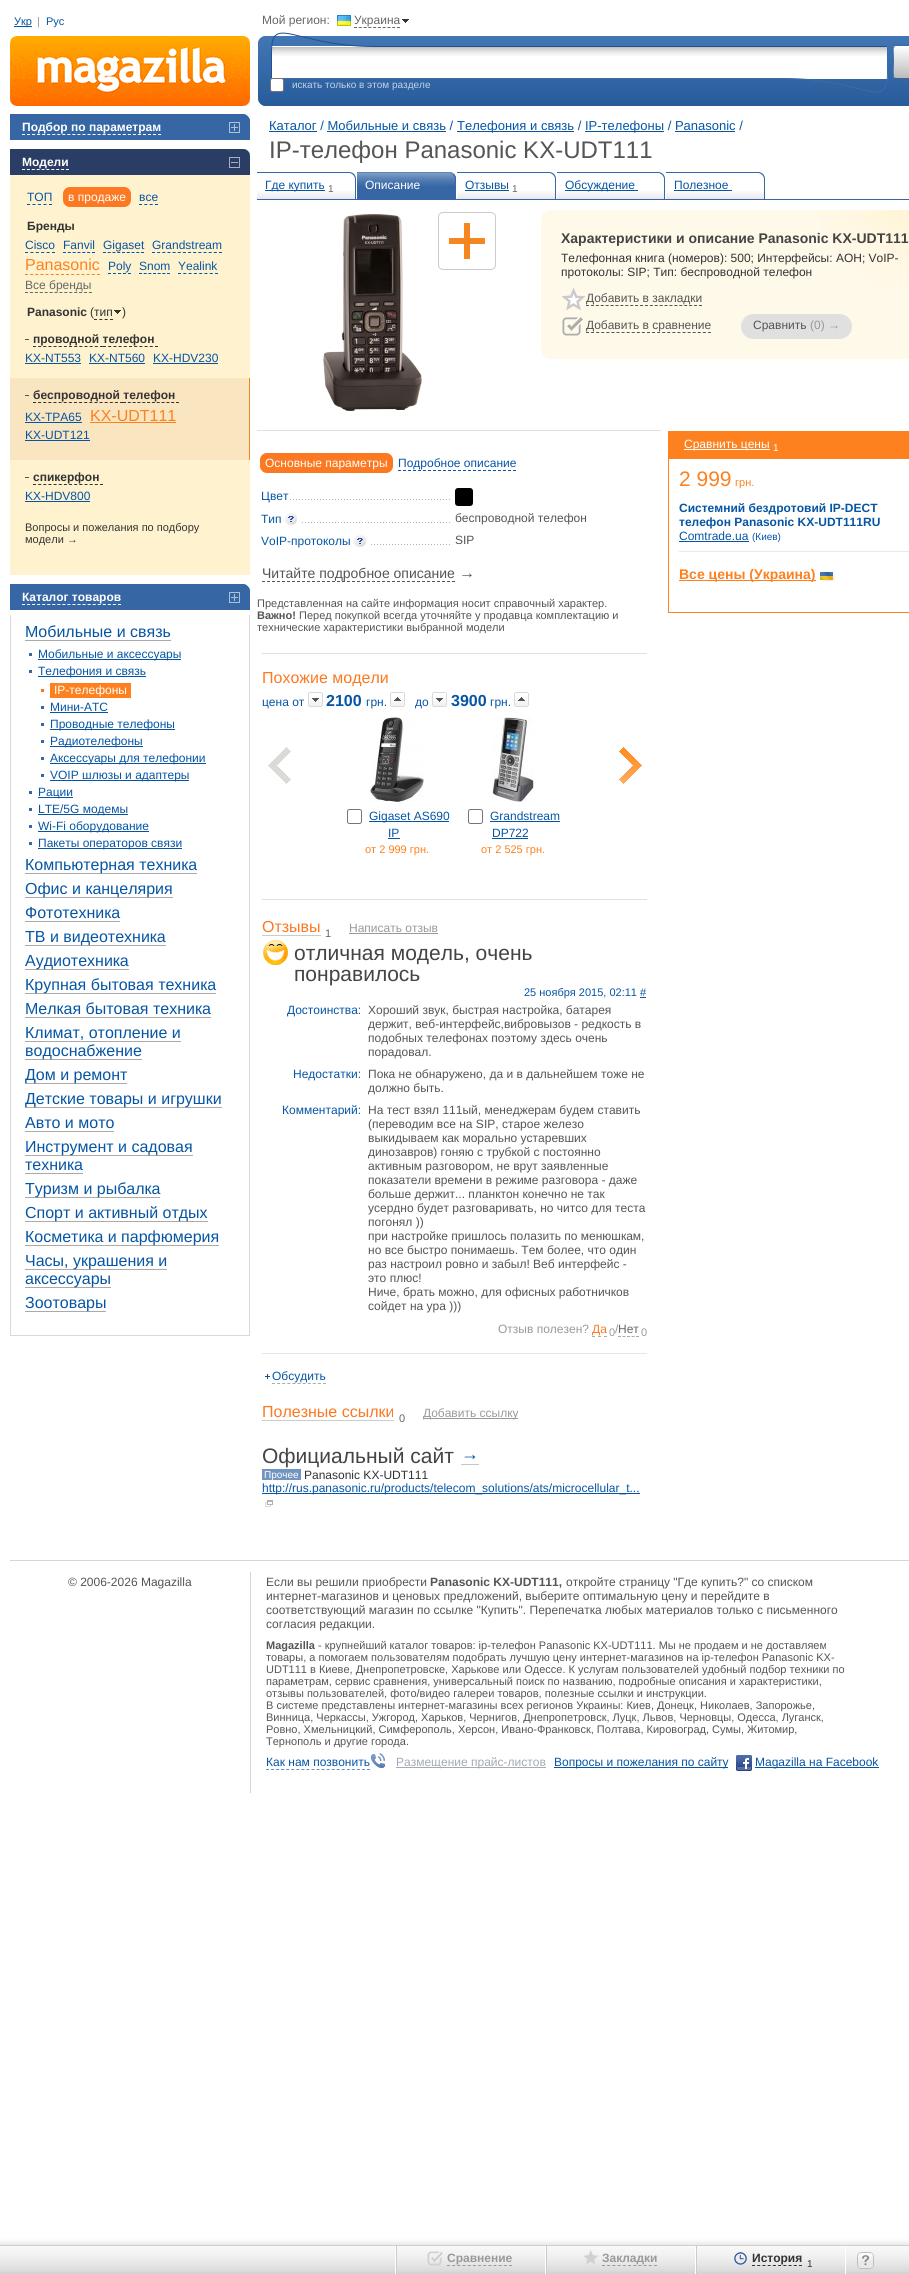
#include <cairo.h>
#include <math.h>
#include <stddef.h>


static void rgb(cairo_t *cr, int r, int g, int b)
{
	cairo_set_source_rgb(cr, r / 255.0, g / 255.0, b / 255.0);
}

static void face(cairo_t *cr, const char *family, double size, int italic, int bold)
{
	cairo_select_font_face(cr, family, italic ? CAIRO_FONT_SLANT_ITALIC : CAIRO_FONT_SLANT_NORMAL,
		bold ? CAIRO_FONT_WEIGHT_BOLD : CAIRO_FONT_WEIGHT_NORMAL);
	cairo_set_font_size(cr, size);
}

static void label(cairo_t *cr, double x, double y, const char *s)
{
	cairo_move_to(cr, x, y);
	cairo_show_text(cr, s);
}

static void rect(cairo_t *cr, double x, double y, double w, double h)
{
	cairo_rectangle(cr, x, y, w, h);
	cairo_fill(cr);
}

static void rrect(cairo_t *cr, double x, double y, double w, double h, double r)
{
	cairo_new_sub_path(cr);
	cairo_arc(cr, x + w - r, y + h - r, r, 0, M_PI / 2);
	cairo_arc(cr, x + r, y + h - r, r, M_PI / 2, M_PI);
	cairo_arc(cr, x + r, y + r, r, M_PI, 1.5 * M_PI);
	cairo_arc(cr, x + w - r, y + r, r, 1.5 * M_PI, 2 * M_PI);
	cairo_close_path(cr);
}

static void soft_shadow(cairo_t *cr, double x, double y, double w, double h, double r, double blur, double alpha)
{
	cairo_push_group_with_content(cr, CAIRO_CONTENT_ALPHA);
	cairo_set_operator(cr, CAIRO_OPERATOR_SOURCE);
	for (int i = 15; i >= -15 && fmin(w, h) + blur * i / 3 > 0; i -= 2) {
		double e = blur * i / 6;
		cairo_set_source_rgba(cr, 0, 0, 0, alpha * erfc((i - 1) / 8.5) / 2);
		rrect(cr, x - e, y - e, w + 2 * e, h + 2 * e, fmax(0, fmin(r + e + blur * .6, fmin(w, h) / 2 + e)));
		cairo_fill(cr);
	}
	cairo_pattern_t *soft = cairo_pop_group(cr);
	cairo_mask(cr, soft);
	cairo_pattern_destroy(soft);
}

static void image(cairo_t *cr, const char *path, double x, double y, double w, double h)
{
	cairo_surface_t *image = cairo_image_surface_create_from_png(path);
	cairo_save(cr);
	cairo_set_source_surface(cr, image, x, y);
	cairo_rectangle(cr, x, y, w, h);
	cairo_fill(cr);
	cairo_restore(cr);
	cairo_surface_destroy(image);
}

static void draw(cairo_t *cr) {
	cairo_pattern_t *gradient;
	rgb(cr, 255, 255, 255);
	cairo_paint(cr);
	rgb(cr, 6, 85, 164);
	rect(cr, 14, 26, 18, 1);
	face(cr, "Liberation Sans", 11, 0, 0);
	label(cr, 14, 25, "Укр");
	rgb(cr, 153, 153, 153);
	label(cr, 37, 25, "|");
	rgb(cr, 6, 85, 164);
	label(cr, 46, 25, "Рус");
	face(cr, "Liberation Sans", 12, 0, 0);
	rgb(cr, 102, 102, 102);
	label(cr, 262, 24, "Мой регион:");
	image(cr, "image0.png", 337, 15, 14, 11);
	label(cr, 354, 24, "Украина");
	cairo_new_path(cr);
	cairo_move_to(cr, 354, 27.5);
	cairo_line_to(cr, 400, 27.5);
	cairo_set_line_width(cr, 1);
	cairo_set_dash(cr, (double[]){3, 1.78}, 2, 0);
	cairo_stroke(cr);
	image(cr, "image1.png", 402, 19, 7, 4);
	image(cr, "image2.png", 10, 36, 240, 70);
	rgb(cr, 67, 118, 181);
	rrect(cr, 258, 36, 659, 70, 8);
	cairo_fill(cr);
	image(cr, "image3.png", 258, 36, 651, 70);
	rgb(cr, 255, 255, 255);
	rrect(cr, 271, 46, 617, 33, 1);
	cairo_fill(cr);
	image(cr, "image4.png", 271, 47, 616, 9);
	cairo_new_path(cr);
	cairo_move_to(cr, 887.5, 46.5);
	cairo_line_to(cr, 887.5, 73);
	cairo_curve_to(cr, 887.5, 112, 863, 78.5, 784.5, 78.5);
	cairo_line_to(cr, 271.5, 78.5);
	rgb(cr, 58, 107, 168);
	cairo_set_dash(cr, NULL, 0, 0);
	cairo_stroke(cr);
	cairo_new_path(cr);
	cairo_move_to(cr, 271.5, 78.5);
	cairo_line_to(cr, 271.5, 52);
	cairo_curve_to(cr, 271.5, 13, 296, 46.5, 374.5, 46.5);
	cairo_line_to(cr, 887.5, 46.5);
	rgb(cr, 32, 81, 140);
	cairo_stroke(cr);
	cairo_save(cr);
	rrect(cr, 893, 45, 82, 34, 3);
	cairo_clip(cr);
	gradient = cairo_pattern_create_linear(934, 46, 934, 78);
	cairo_pattern_add_color_stop_rgba(gradient, 0, 1, 1, 1, 1);
	cairo_pattern_add_color_stop_rgba(gradient, 1, 0.733, 0.733, 0.733, 1);
	cairo_set_source(cr, gradient);
	cairo_pattern_destroy(gradient);
	rect(cr, 893, 46, 16, 32);
	cairo_restore(cr);
	cairo_new_path(cr);
	cairo_move_to(cr, 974, 46);
	cairo_curve_to(cr, 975.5, 48, 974.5, 59.5, 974.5, 62);
	cairo_curve_to(cr, 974.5, 81.5, 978.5, 78.5, 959.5, 78.5);
	cairo_line_to(cr, 896, 78.5);
	cairo_line_to(cr, 894, 78);
	rgb(cr, 71, 93, 144);
	cairo_stroke(cr);
	cairo_new_path(cr);
	cairo_move_to(cr, 894, 78);
	cairo_curve_to(cr, 892.5, 76, 893.5, 64.5, 893.5, 62);
	cairo_curve_to(cr, 893.5, 42.5, 889.5, 45.5, 908.5, 45.5);
	cairo_line_to(cr, 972, 45.5);
	cairo_line_to(cr, 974, 46);
	rgb(cr, 58, 107, 168);
	cairo_stroke(cr);
	rgb(cr, 255, 255, 255);
	rrect(cr, 270.5, 78.5, 13, 13, 2);
	cairo_fill_preserve(cr);
	rgb(cr, 118, 118, 118);
	cairo_stroke(cr);
	face(cr, "Liberation Sans", 10, 0, 0);
	rgb(cr, 194, 211, 228);
	label(cr, 292, 88, "искать только в этом разделе");
	rgb(cr, 54, 103, 164);
	rect(cr, 10, 114, 240, 26);
	image(cr, "image5.png", 229, 114, 21, 19);
	face(cr, "Liberation Sans", 12, 0, 1);
	rgb(cr, 255, 255, 255);
	label(cr, 22, 131, "Подбор по параметрам");
	cairo_new_path(cr);
	cairo_move_to(cr, 22, 134.5);
	cairo_line_to(cr, 161, 134.5);
	cairo_set_dash(cr, (double[]){3, 2.04}, 2, 0);
	cairo_stroke(cr);
	rgb(cr, 42, 61, 100);
	rect(cr, 10, 149, 240, 26);
	image(cr, "image6.png", 229, 149, 21, 19);
	rgb(cr, 255, 255, 255);
	label(cr, 22, 166, "Модели");
	cairo_new_path(cr);
	cairo_move_to(cr, 22, 169.5);
	cairo_line_to(cr, 69, 169.5);
	cairo_set_dash(cr, (double[]){3, 1.89}, 2, 0);
	cairo_stroke(cr);
	rgb(cr, 254, 242, 207);
	rect(cr, 10, 175, 240, 400);
	face(cr, "Liberation Sans", 12, 0, 0);
	rgb(cr, 6, 85, 164);
	label(cr, 27, 201, "ТОП");
	cairo_new_path(cr);
	cairo_move_to(cr, 27, 204.5);
	cairo_line_to(cr, 52, 204.5);
	cairo_set_dash(cr, (double[]){3, 2.5}, 2, 0);
	cairo_stroke(cr);
	rgb(cr, 252, 120, 33);
	rrect(cr, 63, 187, 68, 20, 7);
	cairo_fill(cr);
	rgb(cr, 255, 255, 255);
	label(cr, 68, 201, "в продаже");
	rgb(cr, 6, 85, 164);
	label(cr, 139, 201, "все");
	cairo_new_path(cr);
	cairo_move_to(cr, 139, 204.5);
	cairo_line_to(cr, 158, 204.5);
	cairo_set_dash(cr, (double[]){3, 2.33}, 2, 0);
	cairo_stroke(cr);
	face(cr, "Liberation Sans", 12, 0, 1);
	rgb(cr, 51, 51, 51);
	label(cr, 27, 230, "Бренды");
	cairo_new_path(cr);
	cairo_move_to(cr, 25, 252.5);
	cairo_line_to(cr, 55, 252.5);
	rgb(cr, 6, 85, 164);
	cairo_set_dash(cr, (double[]){3, 2.4}, 2, 0);
	cairo_stroke(cr);
	face(cr, "Liberation Sans", 12, 0, 0);
	label(cr, 25, 249, "Cisco");
	cairo_new_path(cr);
	cairo_move_to(cr, 63, 252.5);
	cairo_line_to(cr, 95, 252.5);
	cairo_set_dash(cr, (double[]){3, 1.83}, 2, 0);
	cairo_stroke(cr);
	label(cr, 63, 249, "Fanvil");
	cairo_new_path(cr);
	cairo_move_to(cr, 103, 252.5);
	cairo_line_to(cr, 144, 252.5);
	cairo_set_dash(cr, (double[]){3, 1.75}, 2, 0);
	cairo_stroke(cr);
	label(cr, 103, 249, "Gigaset");
	cairo_new_path(cr);
	cairo_move_to(cr, 152, 252.5);
	cairo_line_to(cr, 222, 252.5);
	cairo_set_dash(cr, (double[]){3, 2.15}, 2, 0);
	cairo_stroke(cr);
	label(cr, 152, 249, "Grandstream");
	cairo_new_path(cr);
	cairo_move_to(cr, 25, 274.5);
	cairo_line_to(cr, 100, 274.5);
	rgb(cr, 253, 129, 31);
	cairo_set_dash(cr, (double[]){3, 2.14}, 2, 0);
	cairo_stroke(cr);
	face(cr, "Liberation Sans", 16, 0, 0);
	label(cr, 25, 270, "Panasonic");
	cairo_new_path(cr);
	cairo_move_to(cr, 108, 273.5);
	cairo_line_to(cr, 131, 273.5);
	rgb(cr, 6, 85, 164);
	cairo_set_dash(cr, (double[]){3, 2}, 2, 0);
	cairo_stroke(cr);
	face(cr, "Liberation Sans", 12, 0, 0);
	label(cr, 108, 270, "Poly");
	cairo_new_path(cr);
	cairo_move_to(cr, 139, 273.5);
	cairo_line_to(cr, 170, 273.5);
	cairo_set_dash(cr, (double[]){3, 1.67}, 2, 0);
	cairo_stroke(cr);
	label(cr, 139, 270, "Snom");
	cairo_new_path(cr);
	cairo_move_to(cr, 178, 273.5);
	cairo_line_to(cr, 218, 273.5);
	cairo_set_dash(cr, (double[]){3, 2.29}, 2, 0);
	cairo_stroke(cr);
	label(cr, 178, 270, "Yealink");
	rgb(cr, 102, 102, 102);
	label(cr, 25, 289, "Все бренды");
	cairo_new_path(cr);
	cairo_move_to(cr, 25, 292.5);
	cairo_line_to(cr, 92, 292.5);
	cairo_set_dash(cr, (double[]){3, 1.92}, 2, 0);
	cairo_stroke(cr);
	face(cr, "Liberation Sans", 12, 0, 1);
	rgb(cr, 51, 51, 51);
	label(cr, 27, 316, "Panasonic");
	face(cr, "Liberation Sans", 12, 0, 0);
	label(cr, 90, 316, "(тип");
	cairo_new_path(cr);
	cairo_move_to(cr, 94, 319.5);
	cairo_line_to(cr, 113, 319.5);
	cairo_set_dash(cr, (double[]){3, 2.33}, 2, 0);
	cairo_stroke(cr);
	image(cr, "image7.png", 114, 310, 7, 4);
	label(cr, 122, 316, ")");
	rgb(cr, 85, 85, 85);
	rect(cr, 25, 339, 4, 1);
	face(cr, "Liberation Sans", 12, 0, 1);
	rgb(cr, 51, 51, 51);
	label(cr, 33, 343, "проводной телефон");
	cairo_new_path(cr);
	cairo_move_to(cr, 33, 346.5);
	cairo_line_to(cr, 103, 346.5);
	cairo_set_dash(cr, (double[]){3, 2.15}, 2, 0);
	cairo_stroke(cr);
	cairo_new_path(cr);
	cairo_move_to(cr, 103, 346.5);
	cairo_line_to(cr, 158, 346.5);
	cairo_set_dash(cr, (double[]){3, 2.2}, 2, 0);
	cairo_stroke(cr);
	face(cr, "Liberation Sans", 12, 0, 0);
	rgb(cr, 6, 85, 164);
	label(cr, 25, 362, "KX-NT553");
	rect(cr, 25, 363, 56, 1);
	label(cr, 89, 362, "KX-NT560");
	rect(cr, 89, 363, 56, 1);
	label(cr, 153, 362, "KX-HDV230");
	rect(cr, 153, 363, 65, 1);
	rgb(cr, 249, 229, 192);
	rect(cr, 10, 378, 239, 82);
	rgb(cr, 253, 129, 31);
	rect(cr, 249, 378, 1, 82);
	rgb(cr, 85, 85, 85);
	rect(cr, 25, 395, 4, 1);
	face(cr, "Liberation Sans", 12, 0, 1);
	rgb(cr, 51, 51, 51);
	label(cr, 33, 399, "беспроводной телефон");
	cairo_new_path(cr);
	cairo_move_to(cr, 33, 402.5);
	cairo_line_to(cr, 123, 402.5);
	cairo_set_dash(cr, (double[]){3, 2.12}, 2, 0);
	cairo_stroke(cr);
	cairo_new_path(cr);
	cairo_move_to(cr, 123, 402.5);
	cairo_line_to(cr, 179, 402.5);
	cairo_set_dash(cr, (double[]){3, 1.82}, 2, 0);
	cairo_stroke(cr);
	face(cr, "Liberation Sans", 12, 0, 0);
	rgb(cr, 6, 85, 164);
	label(cr, 25, 421, "KX-TPA65");
	rect(cr, 25, 422, 57, 1);
	face(cr, "Liberation Sans", 16, 0, 0);
	rgb(cr, 253, 129, 31);
	label(cr, 90, 421, "KX-UDT111");
	rect(cr, 90, 422, 86, 1);
	face(cr, "Liberation Sans", 12, 0, 0);
	rgb(cr, 6, 85, 164);
	label(cr, 25, 439, "KX-UDT121");
	rect(cr, 25, 440, 65, 1);
	rgb(cr, 85, 85, 85);
	rect(cr, 25, 477, 4, 1);
	face(cr, "Liberation Sans", 12, 0, 1);
	rgb(cr, 51, 51, 51);
	label(cr, 33, 481, "спикерфон");
	cairo_new_path(cr);
	cairo_move_to(cr, 33, 484.5);
	cairo_line_to(cr, 103, 484.5);
	cairo_set_dash(cr, (double[]){3, 2.15}, 2, 0);
	cairo_stroke(cr);
	face(cr, "Liberation Sans", 12, 0, 0);
	rgb(cr, 6, 85, 164);
	label(cr, 25, 500, "KX-HDV800");
	rect(cr, 25, 501, 65, 1);
	face(cr, "Liberation Sans", 11, 0, 0);
	rgb(cr, 51, 51, 51);
	label(cr, 25, 531, "Вопросы и пожелания по подбору");
	label(cr, 25, 543, "модели →");
	rgb(cr, 54, 103, 164);
	rect(cr, 10, 584, 240, 26);
	image(cr, "image5.png", 229, 584, 21, 19);
	face(cr, "Liberation Sans", 12, 0, 1);
	rgb(cr, 255, 255, 255);
	label(cr, 22, 601, "Каталог товаров");
	cairo_new_path(cr);
	cairo_move_to(cr, 22, 604.5);
	cairo_line_to(cr, 121, 604.5);
	cairo_set_dash(cr, (double[]){3, 2.05}, 2, 0);
	cairo_stroke(cr);
	rgb(cr, 217, 217, 217);
	rect(cr, 249, 615, 1, 721);
	rect(cr, 10, 1335, 240, 1);
	rect(cr, 10, 615, 1, 721);
	face(cr, "Liberation Sans", 16, 0, 0);
	rgb(cr, 6, 85, 164);
	label(cr, 25, 637, "Мобильные и связь");
	rgb(cr, 170, 170, 170);
	rect(cr, 25, 640, 146, 1);
	rgb(cr, 54, 103, 164);
	rect(cr, 29, 653, 3, 3);
	rgb(cr, 6, 85, 164);
	rect(cr, 38, 659, 143, 1);
	face(cr, "Liberation Sans", 12, 0, 0);
	label(cr, 38, 658, "Мобильные и аксессуары");
	rgb(cr, 54, 103, 164);
	rect(cr, 29, 670, 3, 3);
	rgb(cr, 6, 85, 164);
	rect(cr, 38, 676, 108, 1);
	label(cr, 38, 675, "Телефония и связь");
	rgb(cr, 254, 114, 16);
	rect(cr, 41, 689, 3, 3);
	rgb(cr, 253, 129, 31);
	rect(cr, 50, 683, 81, 15);
	rgb(cr, 255, 255, 255);
	label(cr, 54, 694, "IP-телефоны");
	rgb(cr, 54, 103, 164);
	rect(cr, 41, 706, 3, 3);
	rgb(cr, 6, 85, 164);
	label(cr, 50, 711, "Мини-АТС");
	rect(cr, 50, 712, 58, 1);
	rgb(cr, 54, 103, 164);
	rect(cr, 41, 723, 3, 3);
	rgb(cr, 6, 85, 164);
	rect(cr, 50, 729, 125, 1);
	label(cr, 50, 728, "Проводные телефоны");
	rgb(cr, 54, 103, 164);
	rect(cr, 41, 740, 3, 3);
	rgb(cr, 6, 85, 164);
	rect(cr, 50, 746, 93, 1);
	label(cr, 50, 745, "Радиотелефоны");
	rgb(cr, 54, 103, 164);
	rect(cr, 41, 757, 3, 3);
	rgb(cr, 6, 85, 164);
	rect(cr, 50, 763, 156, 1);
	label(cr, 50, 762, "Аксессуары для телефонии");
	rgb(cr, 54, 103, 164);
	rect(cr, 41, 774, 3, 3);
	rgb(cr, 6, 85, 164);
	rect(cr, 50, 780, 139, 1);
	label(cr, 50, 779, "VOIP шлюзы и адаптеры");
	rgb(cr, 54, 103, 164);
	rect(cr, 29, 791, 3, 3);
	rgb(cr, 6, 85, 164);
	rect(cr, 38, 797, 35, 1);
	label(cr, 38, 796, "Рации");
	rgb(cr, 54, 103, 164);
	rect(cr, 29, 808, 3, 3);
	rgb(cr, 6, 85, 164);
	rect(cr, 38, 814, 90, 1);
	label(cr, 38, 813, "LTE/5G модемы");
	rgb(cr, 54, 103, 164);
	rect(cr, 29, 825, 3, 3);
	rgb(cr, 6, 85, 164);
	rect(cr, 38, 831, 111, 1);
	label(cr, 38, 830, "Wi-Fi оборудование");
	rgb(cr, 54, 103, 164);
	rect(cr, 29, 842, 3, 3);
	rgb(cr, 6, 85, 164);
	rect(cr, 38, 848, 144, 1);
	label(cr, 38, 847, "Пакеты операторов связи");
	rgb(cr, 170, 170, 170);
	rect(cr, 25, 873, 172, 1);
	face(cr, "Liberation Sans", 16, 0, 0);
	rgb(cr, 6, 85, 164);
	label(cr, 25, 870, "Компьютерная техника");
	rgb(cr, 170, 170, 170);
	rect(cr, 25, 897, 148, 1);
	rgb(cr, 6, 85, 164);
	label(cr, 25, 894, "Офис и канцелярия");
	label(cr, 25, 918, "Фототехника");
	rgb(cr, 170, 170, 170);
	rect(cr, 25, 921, 95, 1);
	rect(cr, 25, 945, 141, 1);
	rgb(cr, 6, 85, 164);
	label(cr, 25, 942, "ТВ и видеотехника");
	rgb(cr, 170, 170, 170);
	rect(cr, 25, 969, 104, 1);
	rgb(cr, 6, 85, 164);
	label(cr, 25, 966, "Аудиотехника");
	rgb(cr, 170, 170, 170);
	rect(cr, 25, 993, 191, 1);
	rgb(cr, 6, 85, 164);
	label(cr, 25, 990, "Крупная бытовая техника");
	label(cr, 25, 1014, "Мелкая бытовая техника");
	rgb(cr, 170, 170, 170);
	rect(cr, 25, 1017, 186, 1);
	rgb(cr, 6, 85, 164);
	label(cr, 25, 1038, "Климат, отопление и");
	rgb(cr, 170, 170, 170);
	rect(cr, 25, 1041, 156, 1);
	rect(cr, 25, 1059, 117, 1);
	rgb(cr, 6, 85, 164);
	label(cr, 25, 1056, "водоснабжение");
	rgb(cr, 170, 170, 170);
	rect(cr, 25, 1083, 102, 1);
	rgb(cr, 6, 85, 164);
	label(cr, 25, 1080, "Дом и ремонт");
	rgb(cr, 170, 170, 170);
	rect(cr, 25, 1107, 197, 1);
	rgb(cr, 6, 85, 164);
	label(cr, 25, 1104, "Детские товары и игрушки");
	label(cr, 25, 1128, "Авто и мото");
	rgb(cr, 170, 170, 170);
	rect(cr, 25, 1131, 89, 1);
	rect(cr, 25, 1155, 168, 1);
	rgb(cr, 6, 85, 164);
	label(cr, 25, 1152, "Инструмент и садовая");
	label(cr, 25, 1170, "техника");
	rgb(cr, 170, 170, 170);
	rect(cr, 25, 1173, 58, 1);
	rect(cr, 25, 1197, 135, 1);
	rgb(cr, 6, 85, 164);
	label(cr, 25, 1194, "Туризм и рыбалка");
	rgb(cr, 170, 170, 170);
	rect(cr, 25, 1221, 183, 1);
	rgb(cr, 6, 85, 164);
	label(cr, 25, 1218, "Спорт и активный отдых");
	rgb(cr, 170, 170, 170);
	rect(cr, 25, 1245, 194, 1);
	rgb(cr, 6, 85, 164);
	label(cr, 25, 1242, "Косметика и парфюмерия");
	rgb(cr, 170, 170, 170);
	rect(cr, 25, 1269, 142, 1);
	rgb(cr, 6, 85, 164);
	label(cr, 25, 1266, "Часы, украшения и");
	rgb(cr, 170, 170, 170);
	rect(cr, 25, 1287, 86, 1);
	rgb(cr, 6, 85, 164);
	label(cr, 25, 1284, "аксессуары");
	rgb(cr, 170, 170, 170);
	rect(cr, 25, 1311, 81, 1);
	rgb(cr, 6, 85, 164);
	label(cr, 25, 1308, "Зоотовары");
	face(cr, "Liberation Sans", 13, 0, 0);
	label(cr, 269, 130, "Каталог / Мобильные и связь /");
	rect(cr, 269, 131, 48, 1);
	rect(cr, 457, 131, 117, 1);
	label(cr, 457, 130, "Телефония и связь /");
	rect(cr, 585, 131, 79, 1);
	label(cr, 585, 130, "IP-телефоны / Panasonic /");
	rect(cr, 327, 131, 119, 1);
	rect(cr, 675, 131, 60, 1);
	face(cr, "Liberation Sans", 24, 0, 0);
	rgb(cr, 85, 85, 85);
	label(cr, 269, 158, "IP-телефон Panasonic KX-UDT111");
	rgb(cr, 54, 103, 164);
	rect(cr, 257, 199, 652, 1);
	image(cr, "image8.png", 257, 191, 98, 8);
	cairo_set_fill_rule(cr, CAIRO_FILL_RULE_EVEN_ODD);
	cairo_new_path(cr);
	cairo_move_to(cr, 257, 172);
	cairo_line_to(cr, 349, 172);
	cairo_curve_to(cr, 353, 172, 356, 175, 356, 179);
	cairo_line_to(cr, 356, 199);
	cairo_line_to(cr, 257, 199);
	cairo_close_path(cr);
	cairo_move_to(cr, 257, 173);
	cairo_line_to(cr, 349, 173);
	cairo_curve_to(cr, 352, 173, 355, 176, 355, 179);
	cairo_line_to(cr, 355, 199);
	cairo_line_to(cr, 257, 199);
	cairo_close_path(cr);
	cairo_fill(cr);
	rgb(cr, 6, 85, 164);
	rect(cr, 265, 190, 60, 1);
	face(cr, "Liberation Sans", 12, 0, 0);
	label(cr, 265, 189, "Где купить");
	face(cr, "Liberation Sans", 10, 0, 0);
	rgb(cr, 102, 102, 102);
	label(cr, 328, 192, "1");
	rgb(cr, 54, 103, 164);
	cairo_new_path(cr);
	cairo_move_to(cr, 357, 172);
	cairo_line_to(cr, 449, 172);
	cairo_curve_to(cr, 453, 172, 456, 175, 456, 179);
	cairo_line_to(cr, 456, 199);
	cairo_line_to(cr, 357, 199);
	cairo_close_path(cr);
	cairo_fill(cr);
	image(cr, "image9.png", 357, 173, 99, 13);
	rgb(cr, 92, 135, 188);
	cairo_set_fill_rule(cr, CAIRO_FILL_RULE_WINDING);
	cairo_new_path(cr);
	cairo_move_to(cr, 357, 172);
	cairo_line_to(cr, 357, 173);
	cairo_line_to(cr, 450, 173);
	cairo_line_to(cr, 453, 175);
	cairo_line_to(cr, 454, 174);
	cairo_curve_to(cr, 453, 173, 451, 172, 449, 172);
	cairo_close_path(cr);
	cairo_fill(cr);
	rgb(cr, 54, 103, 164);
	cairo_new_path(cr);
	cairo_move_to(cr, 455, 199);
	cairo_line_to(cr, 456, 199);
	cairo_line_to(cr, 456, 179);
	cairo_curve_to(cr, 456, 177, 455, 175, 454, 174);
	cairo_line_to(cr, 453, 175);
	cairo_curve_to(cr, 454, 176, 455, 177.5, 455, 179);
	cairo_close_path(cr);
	cairo_fill(cr);
	face(cr, "Liberation Sans", 12, 0, 0);
	rgb(cr, 255, 255, 255);
	label(cr, 365, 189, "Описание");
	image(cr, "image8.png", 457, 191, 98, 8);
	rgb(cr, 54, 103, 164);
	cairo_set_fill_rule(cr, CAIRO_FILL_RULE_EVEN_ODD);
	cairo_new_path(cr);
	cairo_move_to(cr, 457, 172);
	cairo_line_to(cr, 549, 172);
	cairo_curve_to(cr, 553, 172, 556, 175, 556, 179);
	cairo_line_to(cr, 556, 199);
	cairo_line_to(cr, 457, 199);
	cairo_close_path(cr);
	cairo_move_to(cr, 457, 173);
	cairo_line_to(cr, 549, 173);
	cairo_curve_to(cr, 552, 173, 555, 176, 555, 179);
	cairo_line_to(cr, 555, 199);
	cairo_line_to(cr, 457, 199);
	cairo_close_path(cr);
	cairo_fill(cr);
	rgb(cr, 6, 85, 164);
	label(cr, 465, 189, "Отзывы");
	rect(cr, 465, 190, 44, 1);
	face(cr, "Liberation Sans", 10, 0, 0);
	rgb(cr, 102, 102, 102);
	label(cr, 512, 192, "1");
	image(cr, "image10.png", 557, 191, 107, 8);
	rgb(cr, 54, 103, 164);
	cairo_new_path(cr);
	cairo_move_to(cr, 557, 172);
	cairo_line_to(cr, 658, 172);
	cairo_curve_to(cr, 662, 172, 665, 175, 665, 179);
	cairo_line_to(cr, 665, 199);
	cairo_line_to(cr, 557, 199);
	cairo_close_path(cr);
	cairo_move_to(cr, 557, 173);
	cairo_line_to(cr, 658, 173);
	cairo_curve_to(cr, 661, 173, 664, 176, 664, 179);
	cairo_line_to(cr, 664, 199);
	cairo_line_to(cr, 557, 199);
	cairo_close_path(cr);
	cairo_fill(cr);
	rgb(cr, 6, 85, 164);
	rect(cr, 565, 190, 73, 1);
	face(cr, "Liberation Sans", 12, 0, 0);
	label(cr, 565, 189, "Обсуждение");
	image(cr, "image8.png", 666, 191, 98, 8);
	rgb(cr, 54, 103, 164);
	cairo_new_path(cr);
	cairo_move_to(cr, 666, 172);
	cairo_line_to(cr, 758, 172);
	cairo_curve_to(cr, 762, 172, 765, 175, 765, 179);
	cairo_line_to(cr, 765, 199);
	cairo_line_to(cr, 666, 199);
	cairo_close_path(cr);
	cairo_move_to(cr, 666, 173);
	cairo_line_to(cr, 758, 173);
	cairo_curve_to(cr, 761, 173, 764, 176, 764, 179);
	cairo_line_to(cr, 764, 199);
	cairo_line_to(cr, 666, 199);
	cairo_close_path(cr);
	cairo_fill(cr);
	rgb(cr, 6, 85, 164);
	label(cr, 674, 189, "Полезное");
	rect(cr, 674, 190, 58, 1);
	image(cr, "image11.png", 322, 212, 101, 199);
	rgb(cr, 246, 134, 31);
	cairo_set_fill_rule(cr, CAIRO_FILL_RULE_WINDING);
	cairo_new_path(cr);
	cairo_move_to(cr, 485, 238);
	cairo_line_to(cr, 470, 238);
	cairo_line_to(cr, 470, 223);
	cairo_line_to(cr, 464, 223);
	cairo_line_to(cr, 464, 238);
	cairo_line_to(cr, 449, 238);
	cairo_line_to(cr, 449, 244);
	cairo_line_to(cr, 464, 244);
	cairo_line_to(cr, 464, 259);
	cairo_line_to(cr, 470, 259);
	cairo_line_to(cr, 470, 244);
	cairo_line_to(cr, 485, 244);
	cairo_close_path(cr);
	cairo_fill(cr);
	rrect(cr, 438.5, 212.5, 57, 57, 4.5);
	rgb(cr, 204, 204, 204);
	cairo_set_dash(cr, NULL, 0, 0);
	cairo_stroke(cr);
	rgb(cr, 255, 249, 234);
	rrect(cr, 541, 210, 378, 149, 10);
	cairo_fill(cr);
	image(cr, "image12.png", 821, 210, 88, 76);
	face(cr, "Liberation Sans", 14, 0, 1);
	rgb(cr, 68, 68, 68);
	label(cr, 561, 243, "Характеристики и описание Panasonic KX-UDT111");
	face(cr, "Liberation Sans", 12, 0, 0);
	rgb(cr, 51, 51, 51);
	label(cr, 561, 262, "Телефонная книга (номеров): 500; Интерфейсы: АОН; VoIP-");
	label(cr, 561, 276, "протоколы: SIP; Тип: беспроводной телефон");
	image(cr, "image13.png", 561, 287, 25, 24);
	rgb(cr, 85, 85, 85);
	label(cr, 586, 302, "Добавить в закладки");
	cairo_new_path(cr);
	cairo_move_to(cr, 586, 305.5);
	cairo_line_to(cr, 702, 305.5);
	cairo_set_dash(cr, (double[]){3, 1.91}, 2, 0);
	cairo_stroke(cr);
	image(cr, "image14.png", 562, 317, 21, 19);
	label(cr, 586, 329, "Добавить в сравнение");
	cairo_new_path(cr);
	cairo_move_to(cr, 586, 332.5);
	cairo_line_to(cr, 711, 332.5);
	cairo_set_dash(cr, (double[]){3, 2.08}, 2, 0);
	cairo_stroke(cr);
	rgb(cr, 224, 224, 224);
	rrect(cr, 741, 314, 111, 25, 12.5);
	cairo_fill(cr);
	rgb(cr, 85, 85, 85);
	label(cr, 753, 329, "Сравнить");
	rgb(cr, 153, 153, 153);
	label(cr, 810, 329, "(0) →");
	rgb(cr, 224, 224, 224);
	rect(cr, 257, 430, 404, 1);
	rgb(cr, 252, 120, 33);
	rrect(cr, 260, 453, 133, 20, 7);
	cairo_fill(cr);
	rgb(cr, 255, 255, 255);
	label(cr, 265, 467, "Основные параметры");
	rgb(cr, 6, 85, 164);
	label(cr, 398, 467, "Подробное описание");
	cairo_new_path(cr);
	cairo_move_to(cr, 398, 470.5);
	cairo_line_to(cr, 516, 470.5);
	cairo_set_dash(cr, (double[]){3, 2}, 2, 0);
	cairo_stroke(cr);
	image(cr, "image15.png", 290, 499, 160, 1);
	label(cr, 261, 500, "Цвет");
	rgb(cr, 0, 0, 0);
	rrect(cr, 455, 488, 18, 18, 3);
	cairo_fill(cr);
	image(cr, "image16.png", 302, 522, 148, 1);
	rgb(cr, 6, 85, 164);
	label(cr, 261, 523, "Тип");
	image(cr, "image17.png", 285, 513, 12, 12);
	rgb(cr, 85, 85, 85);
	label(cr, 455, 522, "беспроводной телефон");
	image(cr, "image18.png", 371, 544, 79, 1);
	rgb(cr, 6, 85, 164);
	label(cr, 261, 545, "VoIP-протоколы");
	image(cr, "image17.png", 354, 535, 12, 12);
	rgb(cr, 85, 85, 85);
	label(cr, 455, 544, "SIP");
	face(cr, "Liberation Sans", 14, 0, 0);
	label(cr, 262, 578, "Читайте подробное описание");
	cairo_new_path(cr);
	cairo_move_to(cr, 262, 581.5);
	cairo_line_to(cr, 455, 581.5);
	cairo_stroke(cr);
	face(cr, "Liberation Sans", 16, 0, 0);
	label(cr, 459, 578, "→");
	face(cr, "Liberation Sans", 11, 0, 0);
	label(cr, 257, 607, "Представленная на сайте информация носит справочный характер.");
	face(cr, "Liberation Sans", 11, 0, 1);
	label(cr, 257, 619, "Важно!");
	face(cr, "Liberation Sans", 11, 0, 0);
	label(cr, 299, 619, "Перед покупкой всегда уточняйте у продавца комплектацию и");
	label(cr, 257, 631, "технические характеристики выбранной модели");
	rgb(cr, 224, 224, 224);
	rect(cr, 262, 653, 385, 1);
	face(cr, "Liberation Sans", 16, 0, 0);
	rgb(cr, 252, 120, 33);
	label(cr, 262, 683, "Похожие модели");
	face(cr, "Liberation Sans", 12, 0, 0);
	rgb(cr, 6, 85, 164);
	label(cr, 262, 706, "цена от");
	image(cr, "image19.png", 308, 692, 15, 15);
	face(cr, "Liberation Sans", 16, 0, 1);
	label(cr, 326, 706, "2100");
	face(cr, "Liberation Sans", 12, 0, 0);
	label(cr, 366, 706, "грн.");
	image(cr, "image20.png", 390, 692, 15, 15);
	label(cr, 415, 706, "до");
	image(cr, "image19.png", 432, 692, 15, 15);
	face(cr, "Liberation Sans", 16, 0, 1);
	label(cr, 451, 706, "3900");
	face(cr, "Liberation Sans", 12, 0, 0);
	label(cr, 490, 706, "грн.");
	image(cr, "image20.png", 514, 692, 15, 15);
	image(cr, "image21.png", 268, 747, 23, 37);
	image(cr, "image22.png", 619, 747, 23, 37);
	image(cr, "image23.png", 370, 717, 54, 85);
	rrect(cr, 347.5, 809.5, 14, 14, 2);
	rgb(cr, 118, 118, 118);
	cairo_set_dash(cr, NULL, 0, 0);
	cairo_stroke(cr);
	rgb(cr, 6, 85, 164);
	rect(cr, 369, 821, 80, 1);
	label(cr, 369, 820, "Gigaset AS690");
	label(cr, 388, 837, "IP");
	rect(cr, 388, 838, 12, 1);
	face(cr, "Liberation Sans", 11, 0, 0);
	rgb(cr, 253, 129, 31);
	label(cr, 365, 853, "от 2 999 грн.");
	image(cr, "image24.png", 492, 717, 42, 85);
	rrect(cr, 468.5, 809.5, 14, 14, 2);
	rgb(cr, 118, 118, 118);
	cairo_stroke(cr);
	face(cr, "Liberation Sans", 12, 0, 0);
	rgb(cr, 6, 85, 164);
	label(cr, 490, 820, "Grandstream");
	rect(cr, 490, 821, 70, 1);
	label(cr, 492, 837, "DP722");
	rect(cr, 492, 838, 36, 1);
	face(cr, "Liberation Sans", 11, 0, 0);
	rgb(cr, 253, 129, 31);
	label(cr, 481, 853, "от 2 525 грн.");
	rgb(cr, 224, 224, 224);
	rect(cr, 262, 899, 385, 1);
	face(cr, "Liberation Sans", 16, 0, 0);
	rgb(cr, 252, 120, 33);
	label(cr, 262, 932, "Отзывы");
	rgb(cr, 204, 204, 204);
	rect(cr, 262, 935, 59, 1);
	face(cr, "Liberation Sans", 11, 0, 0);
	rgb(cr, 102, 102, 102);
	label(cr, 325, 937, "1");
	face(cr, "Liberation Sans", 12, 0, 0);
	rgb(cr, 153, 153, 153);
	label(cr, 349, 932, "Написать отзыв");
	rect(cr, 349, 933, 89, 1);
	image(cr, "image25.png", 263, 940, 25, 25);
	face(cr, "Liberation Sans", 21, 0, 0);
	rgb(cr, 68, 68, 68);
	label(cr, 294, 960, "отличная модель, очень");
	label(cr, 294, 981, "понравилось");
	face(cr, "Liberation Sans", 11, 0, 0);
	rgb(cr, 6, 85, 164);
	label(cr, 524, 996, "25 ноября 2015, 02:11 #");
	rect(cr, 640, 997, 6, 1);
	face(cr, "Liberation Sans", 12, 0, 0);
	label(cr, 287, 1014, "Достоинства:");
	rgb(cr, 85, 85, 85);
	label(cr, 368, 1014, "Хороший звук, быстрая настройка, батарея");
	label(cr, 368, 1028, "держит, веб-интерфейс,вибровызов - редкость в");
	label(cr, 368, 1042, "подобных телефонах поэтому здесь очень");
	label(cr, 368, 1056, "порадовал.");
	rgb(cr, 6, 85, 164);
	label(cr, 293, 1078, "Недостатки:");
	rgb(cr, 85, 85, 85);
	label(cr, 368, 1078, "Пока не обнаружено, да и в дальнейшем тоже не");
	label(cr, 368, 1092, "должно быть.");
	rgb(cr, 6, 85, 164);
	label(cr, 282, 1114, "Комментарий:");
	rgb(cr, 85, 85, 85);
	label(cr, 368, 1114, "На тест взял 111ый, менеджерам будем ставить");
	label(cr, 368, 1128, "(переводим все на SIP, старое железо");
	label(cr, 368, 1142, "выкидываем как морально устаревших");
	label(cr, 368, 1156, "динозавров) гоняю с трубкой с постоянно");
	label(cr, 368, 1170, "активным разговором, не врут заявленные");
	label(cr, 368, 1184, "показатели времени в режиме разговора - даже");
	label(cr, 368, 1198, "больше держит... планктон конечно не так");
	label(cr, 368, 1212, "усердно будет разговаривать, но читсо для теста");
	label(cr, 368, 1226, "погонял ))");
	label(cr, 368, 1240, "при настройке пришлось полазить по менюшкам,");
	label(cr, 368, 1254, "но все быстро понимаешь. Тем более, что один");
	label(cr, 368, 1268, "раз настроил ровно и забыл! Веб интерфейс -");
	label(cr, 368, 1282, "это плюс!");
	label(cr, 368, 1296, "Ниче, брать можно, для офисных работничков");
	label(cr, 368, 1310, "сойдет на ура )))");
	rgb(cr, 153, 153, 153);
	label(cr, 498, 1333, "Отзыв полезен?");
	rgb(cr, 252, 120, 33);
	label(cr, 592, 1333, "Да");
	cairo_new_path(cr);
	cairo_move_to(cr, 592, 1336.5);
	cairo_line_to(cr, 595, 1336.5);
	cairo_move_to(cr, 598, 1336.5);
	cairo_line_to(cr, 601, 1336.5);
	cairo_move_to(cr, 604, 1336.5);
	cairo_line_to(cr, 607, 1336.5);
	rgb(cr, 170, 170, 170);
	cairo_stroke(cr);
	face(cr, "Liberation Sans", 11, 0, 0);
	rgb(cr, 153, 153, 153);
	label(cr, 609, 1336, "0");
	face(cr, "Liberation Sans", 12, 0, 0);
	label(cr, 615, 1333, "/");
	rgb(cr, 102, 102, 102);
	label(cr, 618, 1333, "Нет");
	cairo_new_path(cr);
	cairo_move_to(cr, 618, 1336.5);
	cairo_line_to(cr, 639, 1336.5);
	rgb(cr, 170, 170, 170);
	cairo_set_dash(cr, (double[]){3, 1.5}, 2, 0);
	cairo_stroke(cr);
	face(cr, "Liberation Sans", 11, 0, 0);
	rgb(cr, 153, 153, 153);
	label(cr, 641, 1336, "0");
	rgb(cr, 230, 230, 230);
	rect(cr, 262, 1353, 385, 1);
	image(cr, "image26.png", 265, 1374, 5, 5);
	face(cr, "Liberation Sans", 12, 0, 0);
	rgb(cr, 6, 85, 164);
	label(cr, 272, 1380, "Обсудить");
	cairo_new_path(cr);
	cairo_move_to(cr, 272, 1383.5);
	cairo_line_to(cr, 326, 1383.5);
	rgb(cr, 170, 170, 170);
	cairo_set_dash(cr, (double[]){3, 2.1}, 2, 0);
	cairo_stroke(cr);
	face(cr, "Liberation Sans", 16, 0, 0);
	rgb(cr, 252, 120, 33);
	label(cr, 262, 1417, "Полезные ссылки");
	rgb(cr, 204, 204, 204);
	rect(cr, 262, 1420, 132, 1);
	face(cr, "Liberation Sans", 11, 0, 0);
	rgb(cr, 102, 102, 102);
	label(cr, 399, 1422, "0");
	rgb(cr, 153, 153, 153);
	rect(cr, 423, 1418, 95, 1);
	face(cr, "Liberation Sans", 12, 0, 0);
	label(cr, 423, 1417, "Добавить ссылку");
	face(cr, "Liberation Sans", 21, 0, 0);
	rgb(cr, 68, 68, 68);
	label(cr, 262, 1463, "Официальный сайт");
	face(cr, "Liberation Sans", 18, 0, 0);
	rgb(cr, 6, 85, 164);
	label(cr, 461, 1460, "→");
	rgb(cr, 198, 198, 198);
	rect(cr, 461, 1464, 18, 1);
	rgb(cr, 113, 148, 192);
	rect(cr, 262, 1469, 39, 11);
	face(cr, "Liberation Sans", 10, 0, 0);
	rgb(cr, 255, 255, 255);
	label(cr, 264, 1478, "Прочее");
	face(cr, "Liberation Sans", 12, 0, 0);
	rgb(cr, 51, 51, 51);
	label(cr, 304, 1479, "Panasonic KX-UDT111");
	rgb(cr, 6, 85, 164);
	rect(cr, 262, 1493, 378, 1);
	label(cr, 262, 1492, "http://rus.panasonic.ru/products/telecom_solutions/ats/microcellular_t...");
	image(cr, "image27.png", 265, 1500, 8, 7);
	rgb(cr, 253, 129, 31);
	rect(cr, 668, 612, 241, 1);
	rect(cr, 668, 431, 1, 182);
	rect(cr, 669, 431, 240, 28);
	rgb(cr, 255, 255, 255);
	rect(cr, 684, 449, 86, 1);
	label(cr, 684, 448, "Сравнить цены");
	face(cr, "Liberation Sans", 10, 0, 0);
	label(cr, 773, 451, "1");
	face(cr, "Liberation Sans", 21, 0, 0);
	rgb(cr, 253, 129, 31);
	label(cr, 679, 486, "2 999");
	face(cr, "Liberation Sans", 11, 0, 0);
	label(cr, 735, 486, "грн.");
	rgb(cr, 233, 233, 233);
	rect(cr, 679, 551, 230, 1);
	face(cr, "Liberation Sans", 12, 0, 1);
	rgb(cr, 6, 85, 164);
	label(cr, 679, 512, "Системний бездротовий IP-DECT");
	label(cr, 679, 526, "телефон Panasonic KX-UDT111RU");
	face(cr, "Liberation Sans", 12, 0, 0);
	label(cr, 679, 540, "Comtrade.ua");
	rect(cr, 679, 541, 70, 1);
	face(cr, "Liberation Sans", 10, 0, 0);
	label(cr, 752, 540, "(Киев)");
	rgb(cr, 253, 129, 31);
	rect(cr, 679, 580, 137, 1);
	face(cr, "Liberation Sans", 14, 0, 1);
	label(cr, 679, 579, "Все цены (Украина)");
	image(cr, "image28.png", 820, 572, 15, 9);
	rgb(cr, 214, 214, 214);
	rect(cr, 10, 1560, 899, 1);
	face(cr, "Liberation Sans", 12, 0, 0);
	rgb(cr, 85, 85, 85);
	label(cr, 68, 1586, "© 2006-2026 Magazilla");
	rgb(cr, 214, 214, 214);
	rect(cr, 250, 1572, 1, 221);
	rgb(cr, 85, 85, 85);
	label(cr, 266, 1586, "Если вы решили приобрести");
	face(cr, "Liberation Sans", 12, 0, 1);
	label(cr, 430, 1586, "Panasonic KX-UDT111,");
	face(cr, "Liberation Sans", 12, 0, 0);
	label(cr, 566, 1586, "откройте страницу \"Где купить?\" со списком");
	label(cr, 266, 1600, "интернет-магазинов и ценовых предложений, выберите оптимальную цену и перейдите в");
	label(cr, 266, 1614, "соответствующий магазин по ссылке \"Купить\". Перепечатка любых материалов только с письменного");
	label(cr, 266, 1628, "согласия редакции.");
	face(cr, "Liberation Sans", 11, 0, 1);
	label(cr, 266, 1649, "Magazilla");
	face(cr, "Liberation Sans", 11, 0, 0);
	label(cr, 318, 1649, "- крупнейший каталог товаров: ip-телефон Panasonic KX-UDT111. Мы не продаем и не доставляем");
	label(cr, 266, 1661, "товары, а помогаем пользователям подобрать лучшую цену интернет-магазинов на ip-телефон Panasonic KX-");
	label(cr, 266, 1673, "UDT111 в Киеве, Днепропетровске, Харькове или Одессе. К услугам пользователей удобный подбор техники по");
	label(cr, 266, 1685, "параметрам, сервис сравнения, универсальный поиск по названию, подробные описания и характеристики,");
	label(cr, 266, 1697, "отзывы пользователей, фото/видео галереи товаров, полезные ссылки и инструкции.");
	label(cr, 266, 1709, "В сиcтеме представлены интернет-магазины всех регионов Украины: Киев, Донецк, Николаев, Запорожье,");
	label(cr, 266, 1721, "Винница, Черкассы, Ужгород, Харьков, Чернигов, Днепропетровск, Луцк, Львов, Черновцы, Одесса, Луганск,");
	label(cr, 266, 1733, "Ровно, Хмельницкий, Симферополь, Херсон, Ивано-Франковск, Полтава, Кировоград, Сумы, Житомир,");
	label(cr, 266, 1745, "Тернополь и другие города.");
	face(cr, "Liberation Sans", 12, 0, 0);
	rgb(cr, 6, 85, 164);
	label(cr, 266, 1766, "Как нам позвонить");
	cairo_new_path(cr);
	cairo_move_to(cr, 266, 1769.5);
	cairo_line_to(cr, 370, 1769.5);
	rgb(cr, 97, 147, 197);
	cairo_set_dash(cr, (double[]){3, 2.05}, 2, 0);
	cairo_stroke(cr);
	image(cr, "image29.png", 370, 1753, 16, 15);
	rgb(cr, 164, 170, 176);
	rect(cr, 396, 1767, 150, 1);
	label(cr, 396, 1766, "Размещение прайс-листов");
	rgb(cr, 6, 85, 164);
	rect(cr, 554, 1767, 174, 1);
	label(cr, 554, 1766, "Вопросы и пожелания по сайту");
	image(cr, "image30.png", 736, 1755, 16, 16);
	rect(cr, 755, 1767, 124, 1);
	label(cr, 755, 1766, "Magazilla на Facebook");
	rgb(cr, 0, 0, 0);
	soft_shadow(cr, -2, 2243, 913, 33, 0, 3, 0.12);
	image(cr, "image31.png", 0, 2246, 909, 28);
	rgb(cr, 207, 207, 207);
	rect(cr, 0, 2245, 909, 1);
	rgb(cr, 255, 255, 255);
	rect(cr, 395, 2246, 1, 28);
	rect(cr, 545, 2246, 1, 28);
	rgb(cr, 204, 204, 204);
	rect(cr, 396, 2246, 1, 28);
	image(cr, "image32.png", 427, 2251, 16, 15);
	face(cr, "Liberation Sans", 12, 0, 1);
	rgb(cr, 153, 153, 153);
	label(cr, 447, 2262, "Сравнение");
	cairo_new_path(cr);
	cairo_move_to(cr, 447, 2265.5);
	cairo_line_to(cr, 512, 2265.5);
	cairo_set_dash(cr, (double[]){3, 2.17}, 2, 0);
	cairo_stroke(cr);
	rgb(cr, 255, 255, 255);
	rect(cr, 695, 2246, 1, 28);
	rgb(cr, 204, 204, 204);
	rect(cr, 546, 2246, 1, 28);
	image(cr, "image33.png", 584, 2250, 14, 15);
	rgb(cr, 153, 153, 153);
	label(cr, 602, 2262, "Закладки");
	cairo_new_path(cr);
	cairo_move_to(cr, 602, 2265.5);
	cairo_line_to(cr, 657, 2265.5);
	cairo_set_dash(cr, (double[]){3, 2.2}, 2, 0);
	cairo_stroke(cr);
	rgb(cr, 255, 255, 255);
	rect(cr, 845, 2246, 1, 28);
	rgb(cr, 204, 204, 204);
	rect(cr, 696, 2246, 1, 28);
	image(cr, "image34.png", 734, 2252, 13, 13);
	rgb(cr, 51, 51, 51);
	label(cr, 752, 2262, "История");
	cairo_new_path(cr);
	cairo_move_to(cr, 752, 2265.5);
	cairo_line_to(cr, 802, 2265.5);
	cairo_set_dash(cr, (double[]){3, 2.22}, 2, 0);
	cairo_stroke(cr);
	face(cr, "Liberation Sans", 10, 0, 0);
	label(cr, 807, 2267, "1");
	image(cr, "image35.png", 857, 2252, 17, 17);
}

int main(void) {
	cairo_surface_t *surface = cairo_image_surface_create(CAIRO_FORMAT_RGB24, 909, 2274);
	cairo_t *cr = cairo_create(surface);
	cairo_font_options_t *options = cairo_font_options_create();
	cairo_font_options_set_hint_metrics(options, CAIRO_HINT_METRICS_OFF);
	cairo_font_options_set_hint_style(options, CAIRO_HINT_STYLE_NONE);
	cairo_set_font_options(cr, options);
	cairo_set_miter_limit(cr, 4);
	draw(cr);
	cairo_surface_write_to_png(surface, "render.png");
	cairo_font_options_destroy(options);
	cairo_destroy(cr);
	cairo_surface_destroy(surface);
	return 0;
}
